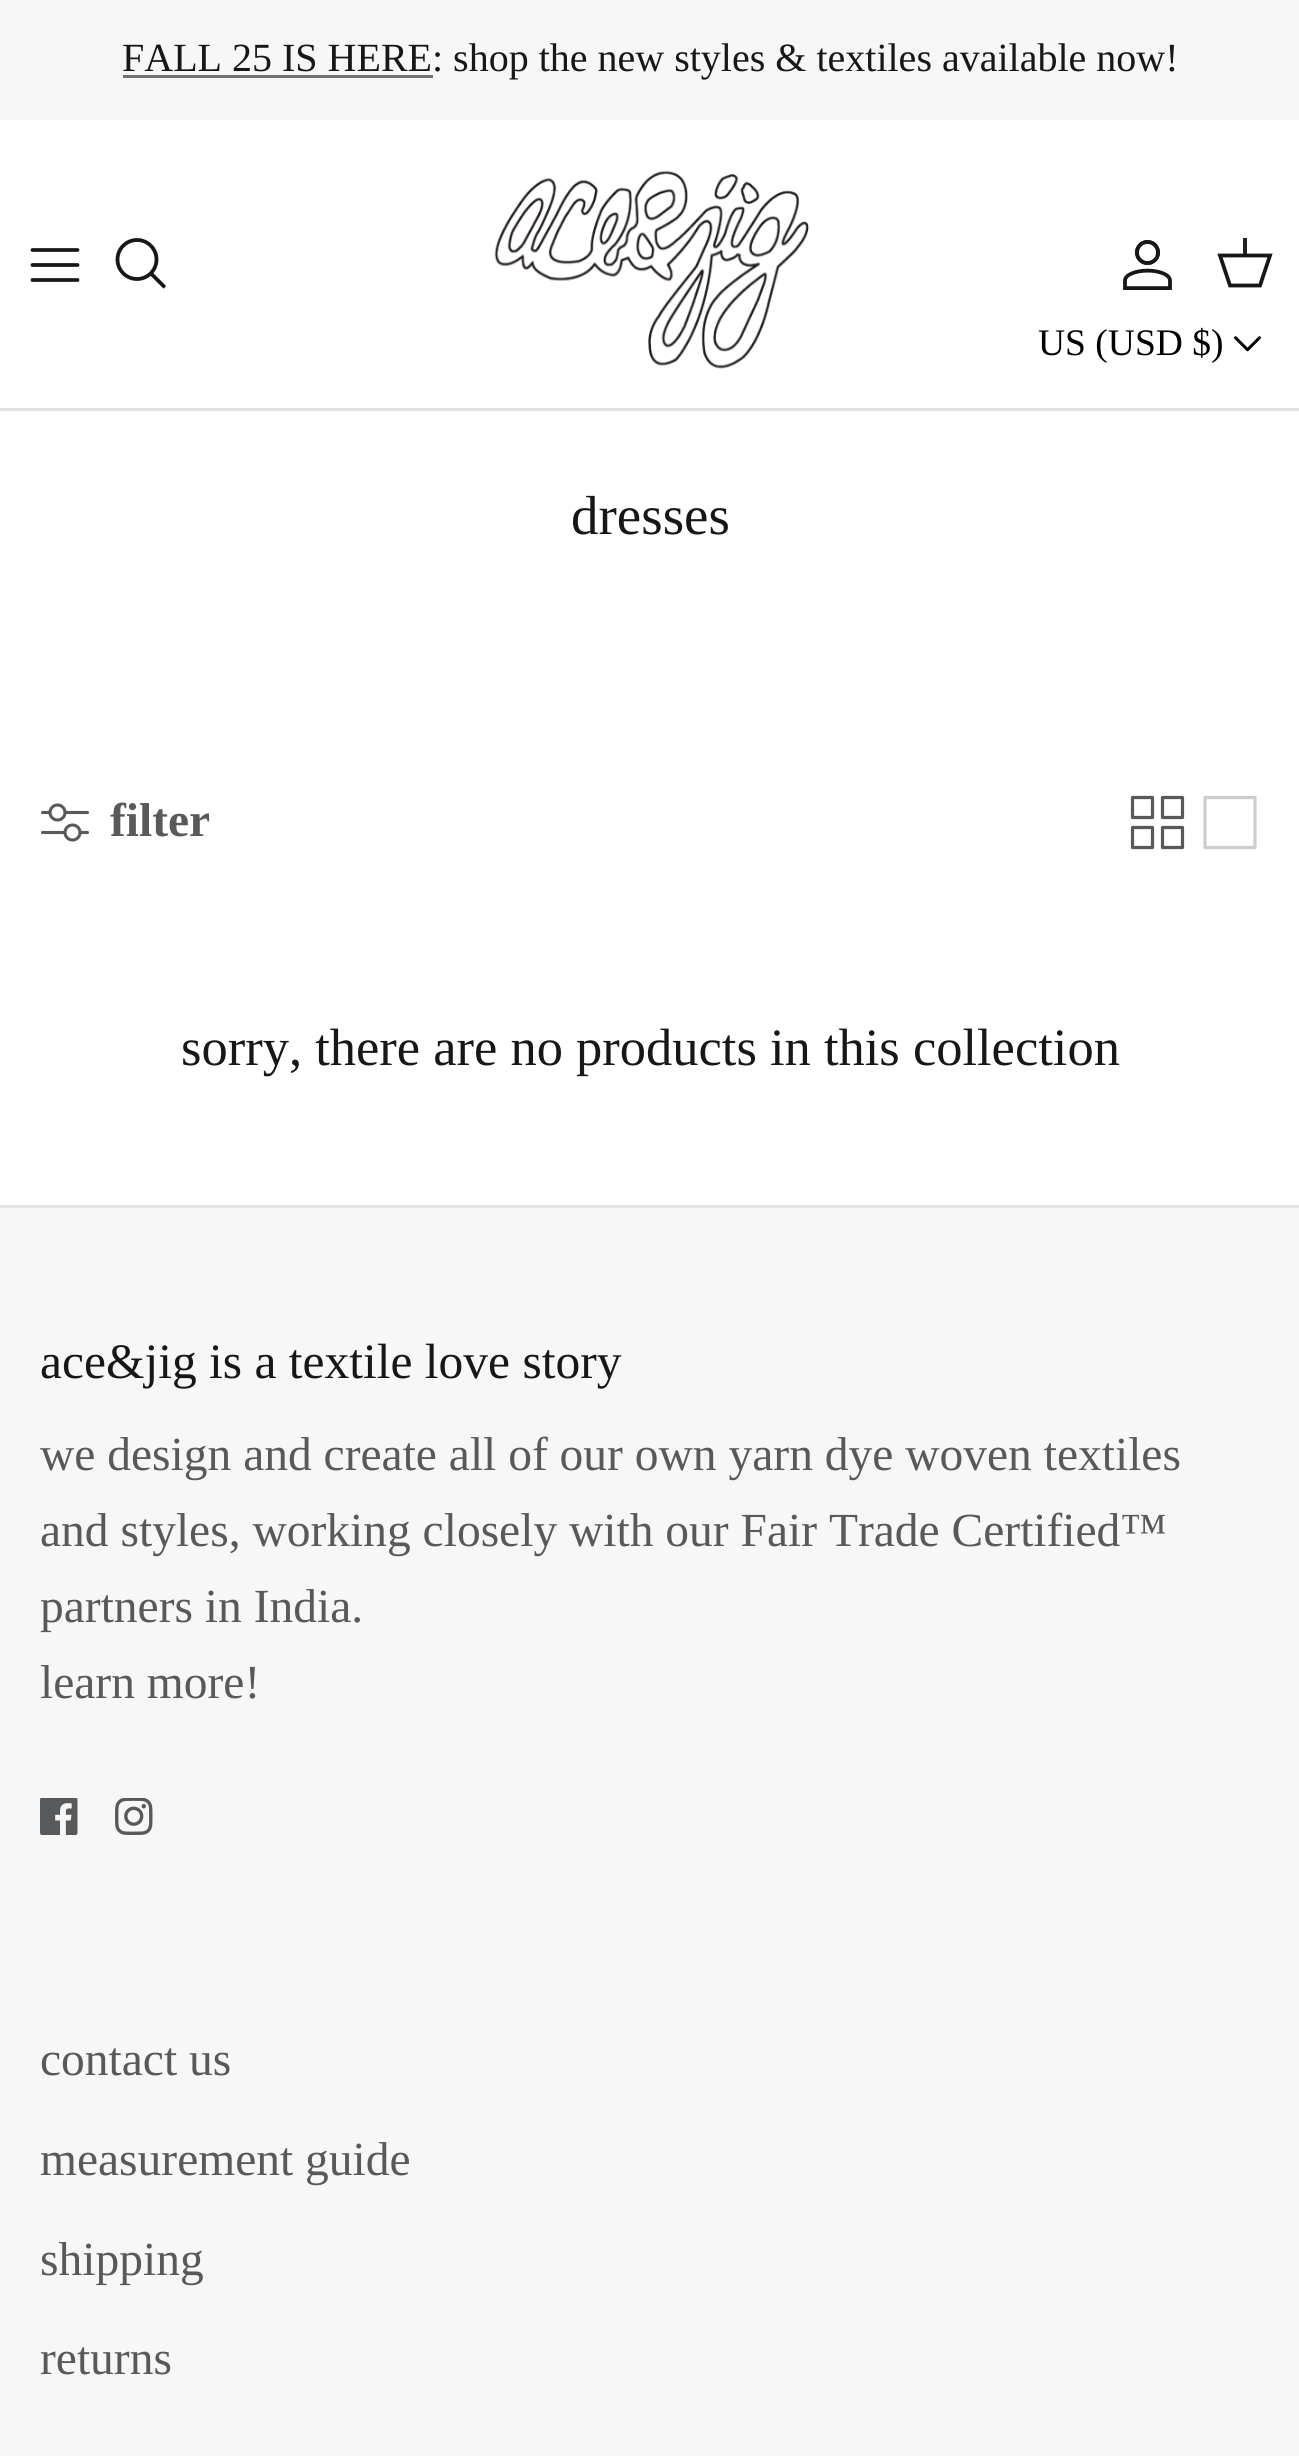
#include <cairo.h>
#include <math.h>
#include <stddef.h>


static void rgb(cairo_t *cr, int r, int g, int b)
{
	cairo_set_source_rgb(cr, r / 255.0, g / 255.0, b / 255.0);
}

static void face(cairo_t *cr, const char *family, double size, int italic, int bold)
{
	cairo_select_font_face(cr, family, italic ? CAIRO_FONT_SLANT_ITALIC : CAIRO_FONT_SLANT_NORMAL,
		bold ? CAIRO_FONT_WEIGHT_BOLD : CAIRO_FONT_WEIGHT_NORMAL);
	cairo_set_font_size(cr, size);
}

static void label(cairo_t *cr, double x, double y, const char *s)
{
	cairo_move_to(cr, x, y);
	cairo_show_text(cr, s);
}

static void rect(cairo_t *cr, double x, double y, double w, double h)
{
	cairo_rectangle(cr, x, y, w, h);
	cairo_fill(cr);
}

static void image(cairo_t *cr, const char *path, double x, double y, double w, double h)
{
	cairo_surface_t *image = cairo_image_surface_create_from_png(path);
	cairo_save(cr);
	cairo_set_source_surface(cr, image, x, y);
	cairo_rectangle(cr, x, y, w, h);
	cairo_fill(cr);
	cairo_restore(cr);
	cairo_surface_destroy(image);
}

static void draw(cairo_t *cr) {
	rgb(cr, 255, 255, 255);
	cairo_paint(cr);
	rgb(cr, 247, 247, 248);
	rect(cr, 0, 0, 1299, 120);
	rgb(cr, 113, 113, 113);
	rect(cr, 123, 75, 310, 3);
	face(cr, "Liberation Serif", 40, 0, 0);
	rgb(cr, 23, 23, 23);
	label(cr, 122, 71, "FALL 25 IS HERE: shop the new styles & textiles available now!");
	rgb(cr, 226, 226, 226);
	rect(cr, 0, 408, 1299, 3);
	cairo_new_path(cr);
	cairo_move_to(cr, 32.5, 265);
	cairo_line_to(cr, 77.5, 265);
	cairo_move_to(cr, 32.5, 250);
	cairo_line_to(cr, 77.5, 250);
	cairo_move_to(cr, 32.5, 280);
	cairo_line_to(cr, 77.5, 280);
	rgb(cr, 23, 23, 23);
	cairo_set_line_width(cr, 3.8);
	cairo_set_line_cap(cr, CAIRO_LINE_CAP_ROUND);
	cairo_set_line_join(cr, CAIRO_LINE_JOIN_ROUND);
	cairo_stroke(cr);
	cairo_arc(cr, 137, 259.5, 19.5, 0, 2 * M_PI);
	cairo_set_line_cap(cr, CAIRO_LINE_CAP_BUTT);
	cairo_set_line_join(cr, CAIRO_LINE_JOIN_MITER);
	cairo_stroke(cr);
	cairo_new_path(cr);
	cairo_move_to(cr, 152.5, 275);
	cairo_line_to(cr, 163.5, 286);
	cairo_set_line_cap(cr, CAIRO_LINE_CAP_SQUARE);
	cairo_stroke(cr);
	image(cr, "image0.png", 494, 170, 315, 199);
	image(cr, "image1.png", 1123, 240, 49, 50);
	cairo_new_path(cr);
	cairo_move_to(cr, 1220, 255.5);
	cairo_line_to(cr, 1270, 255.5);
	cairo_line_to(cr, 1260, 285.5);
	cairo_line_to(cr, 1230, 285.5);
	cairo_close_path(cr);
	cairo_set_line_cap(cr, CAIRO_LINE_CAP_BUTT);
	cairo_stroke(cr);
	cairo_set_source_rgba(cr, 0.09, 0.09, 0.09, 0.95);
	rect(cr, 1243, 238, 4, 19);
	face(cr, "Liberation Serif", 37.5, 0, 0);
	rgb(cr, 0, 0, 0);
	label(cr, 1038, 355, "US (USD $)");
	image(cr, "image2.png", 1234, 336, 27, 16);
	face(cr, "Liberation Serif", 55, 0, 0);
	rgb(cr, 23, 23, 23);
	label(cr, 571, 534, "dresses");
	cairo_new_path(cr);
	cairo_move_to(cr, 42.5, 812.5);
	cairo_line_to(cr, 87.5, 812.5);
	cairo_move_to(cr, 42.5, 832.5);
	cairo_line_to(cr, 87.5, 832.5);
	rgb(cr, 88, 89, 90);
	cairo_set_line_width(cr, 3.1);
	cairo_set_line_cap(cr, CAIRO_LINE_CAP_ROUND);
	cairo_set_line_join(cr, CAIRO_LINE_JOIN_ROUND);
	cairo_stroke(cr);
	rgb(cr, 255, 255, 255);
	cairo_arc(cr, 57.5, 812.5, 7.5, 0, 2 * M_PI);
	cairo_fill_preserve(cr);
	rgb(cr, 88, 89, 90);
	cairo_set_line_cap(cr, CAIRO_LINE_CAP_BUTT);
	cairo_set_line_join(cr, CAIRO_LINE_JOIN_MITER);
	cairo_stroke(cr);
	rgb(cr, 255, 255, 255);
	cairo_arc(cr, 72.5, 832.5, 7.5, 0, 2 * M_PI);
	cairo_fill_preserve(cr);
	rgb(cr, 88, 89, 90);
	cairo_stroke(cr);
	face(cr, "Liberation Serif", 47.5, 0, 1);
	label(cr, 110, 836, "filter");
	image(cr, "image3.png", 1130, 795, 55, 55);
	cairo_new_path(cr);
	cairo_move_to(cr, 1205, 797.5);
	cairo_line_to(cr, 1255, 797.5);
	cairo_line_to(cr, 1255, 847.5);
	cairo_line_to(cr, 1205, 847.5);
	cairo_line_to(cr, 1205, 797.5);
	rgb(cr, 205, 205, 206);
	cairo_set_line_width(cr, 3.2);
	cairo_set_line_cap(cr, CAIRO_LINE_CAP_ROUND);
	cairo_set_line_join(cr, CAIRO_LINE_JOIN_ROUND);
	cairo_stroke(cr);
	face(cr, "Liberation Serif", 52.5, 0, 0);
	rgb(cr, 23, 23, 23);
	label(cr, 181, 1065, "sorry, there are no products in this collection");
	rgb(cr, 247, 247, 248);
	rect(cr, 0, 1208, 1299, 1248);
	rgb(cr, 228, 228, 228);
	rect(cr, 0, 1205, 1299, 3);
	face(cr, "Liberation Serif", 49.5, 0, 0);
	rgb(cr, 23, 23, 23);
	label(cr, 40, 1378, "ace&jig is a textile love story");
	face(cr, "Liberation Serif", 47.5, 0, 0);
	rgb(cr, 88, 89, 90);
	label(cr, 40, 1470, "we design and create all of our own yarn dye woven textiles");
	label(cr, 40, 1546, "and styles, working closely with our Fair Trade Certified™");
	label(cr, 40, 1622, "partners in India.");
	label(cr, 40, 1698, "learn more!");
	image(cr, "image4.png", 40, 1798, 38, 37);
	image(cr, "image5.png", 115, 1798, 38, 37);
	label(cr, 40, 2075, "contact us");
	label(cr, 40, 2175, "measurement guide");
	label(cr, 40, 2275, "shipping");
	label(cr, 40, 2374, "returns");
}

int main(void) {
	cairo_surface_t *surface = cairo_image_surface_create(CAIRO_FORMAT_RGB24, 1299, 2456);
	cairo_t *cr = cairo_create(surface);
	cairo_font_options_t *options = cairo_font_options_create();
	cairo_font_options_set_hint_metrics(options, CAIRO_HINT_METRICS_OFF);
	cairo_font_options_set_hint_style(options, CAIRO_HINT_STYLE_NONE);
	cairo_set_font_options(cr, options);
	cairo_set_miter_limit(cr, 4);
	draw(cr);
	cairo_surface_write_to_png(surface, "render.png");
	cairo_font_options_destroy(options);
	cairo_destroy(cr);
	cairo_surface_destroy(surface);
	return 0;
}
